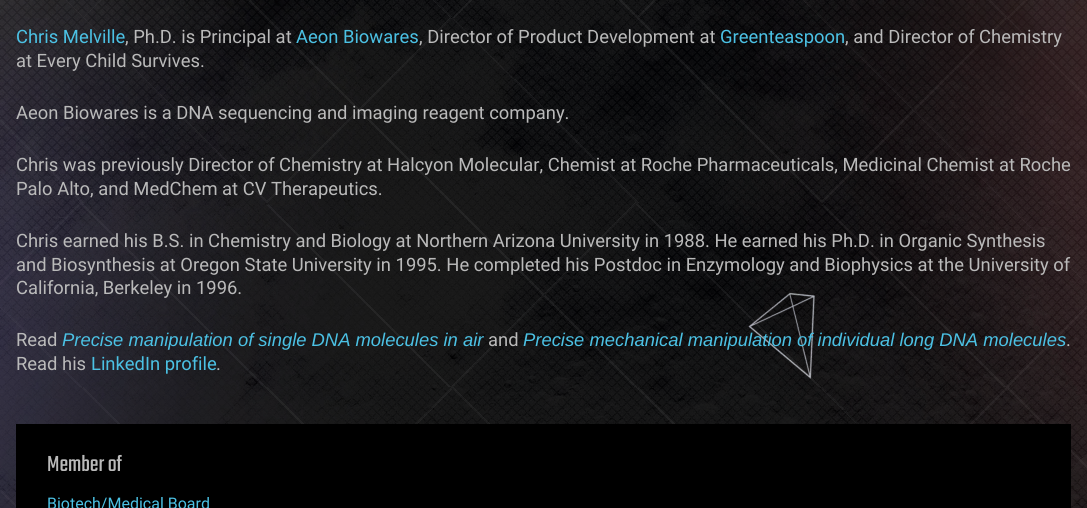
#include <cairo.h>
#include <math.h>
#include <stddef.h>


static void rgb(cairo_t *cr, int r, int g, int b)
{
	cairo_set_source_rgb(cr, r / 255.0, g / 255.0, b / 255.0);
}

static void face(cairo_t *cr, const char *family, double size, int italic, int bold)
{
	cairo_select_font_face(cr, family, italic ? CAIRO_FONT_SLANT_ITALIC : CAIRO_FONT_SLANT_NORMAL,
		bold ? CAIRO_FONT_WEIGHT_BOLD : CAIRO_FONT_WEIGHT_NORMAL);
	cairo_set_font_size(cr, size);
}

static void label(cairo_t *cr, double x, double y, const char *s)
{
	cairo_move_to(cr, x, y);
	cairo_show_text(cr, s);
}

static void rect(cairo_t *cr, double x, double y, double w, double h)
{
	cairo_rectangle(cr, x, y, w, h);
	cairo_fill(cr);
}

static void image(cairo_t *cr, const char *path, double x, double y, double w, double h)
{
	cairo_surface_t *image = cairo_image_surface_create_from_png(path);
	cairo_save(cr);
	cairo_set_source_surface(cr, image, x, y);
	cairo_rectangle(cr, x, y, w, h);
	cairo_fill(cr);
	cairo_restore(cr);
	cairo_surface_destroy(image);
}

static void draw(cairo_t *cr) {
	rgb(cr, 0, 0, 0);
	cairo_paint(cr);
	image(cr, "image0.png", 0, 0, 1087, 508);
	image(cr, "image1.png", 0, 0, 1087, 508);
	face(cr, "Roboto", 18.4, 0, 0);
	rgb(cr, 75, 193, 228);
	label(cr, 16, 43, "Chris Melville");
	rgb(cr, 186, 186, 186);
	label(cr, 125, 43, ", Ph.D. is Principal at");
	rgb(cr, 75, 193, 228);
	label(cr, 296, 43, "Aeon Biowares");
	rgb(cr, 186, 186, 186);
	label(cr, 419, 43, ", Director of Product Development at");
	rgb(cr, 75, 193, 228);
	label(cr, 720, 43, "Greenteaspoon");
	rgb(cr, 186, 186, 186);
	label(cr, 845, 43, ", and Director of Chemistry");
	label(cr, 16, 67, "at Every Child Survives.");
	label(cr, 16, 119, "Aeon Biowares is a DNA sequencing and imaging reagent company.");
	label(cr, 16, 171, "Chris was previously Director of Chemistry at Halcyon Molecular, Chemist at Roche Pharmaceuticals, Medicinal Chemist at Roche");
	label(cr, 16, 195, "Palo Alto, and MedChem at CV Therapeutics.");
	label(cr, 16, 247, "Chris earned his B.S. in Chemistry and Biology at Northern Arizona University in 1988. He earned his Ph.D. in Organic Synthesis");
	label(cr, 16, 271, "and Biosynthesis at Oregon State University in 1995. He completed his Postdoc in Enzymology and Biophysics at the University of");
	label(cr, 16, 294, "California, Berkeley in 1996.");
	label(cr, 16, 346, "Read");
	face(cr, "Liberation Sans", 18.4, 1, 0);
	rgb(cr, 75, 193, 228);
	label(cr, 62, 346, "Precise manipulation of single DNA molecules in air");
	face(cr, "Roboto", 18.4, 0, 0);
	rgb(cr, 186, 186, 186);
	label(cr, 488, 346, "and");
	face(cr, "Liberation Sans", 18.4, 1, 0);
	rgb(cr, 75, 193, 228);
	label(cr, 523, 346, "Precise mechanical manipulation of individual long DNA molecules");
	face(cr, "Roboto", 18.4, 0, 0);
	rgb(cr, 186, 186, 186);
	label(cr, 1066, 346, ".");
	label(cr, 16, 370, "Read his");
	rgb(cr, 75, 193, 228);
	label(cr, 91, 370, "LinkedIn profile");
	rgb(cr, 186, 186, 186);
	label(cr, 216, 370, ".");
	rgb(cr, 0, 0, 0);
	rect(cr, 16, 424, 1055, 84);
	face(cr, "Teko", 24, 0, 0);
	rgb(cr, 186, 186, 186);
	label(cr, 47, 471, "Member of");
	face(cr, "Roboto", 16, 0, 0);
	rgb(cr, 75, 193, 228);
	label(cr, 47, 509, "Biotech/Medical Board");
}

int main(void) {
	cairo_surface_t *surface = cairo_image_surface_create(CAIRO_FORMAT_RGB24, 1087, 508);
	cairo_t *cr = cairo_create(surface);
	cairo_font_options_t *options = cairo_font_options_create();
	cairo_font_options_set_hint_metrics(options, CAIRO_HINT_METRICS_OFF);
	cairo_font_options_set_hint_style(options, CAIRO_HINT_STYLE_NONE);
	cairo_set_font_options(cr, options);
	cairo_set_miter_limit(cr, 4);
	draw(cr);
	cairo_surface_write_to_png(surface, "render.png");
	cairo_font_options_destroy(options);
	cairo_destroy(cr);
	cairo_surface_destroy(surface);
	return 0;
}
